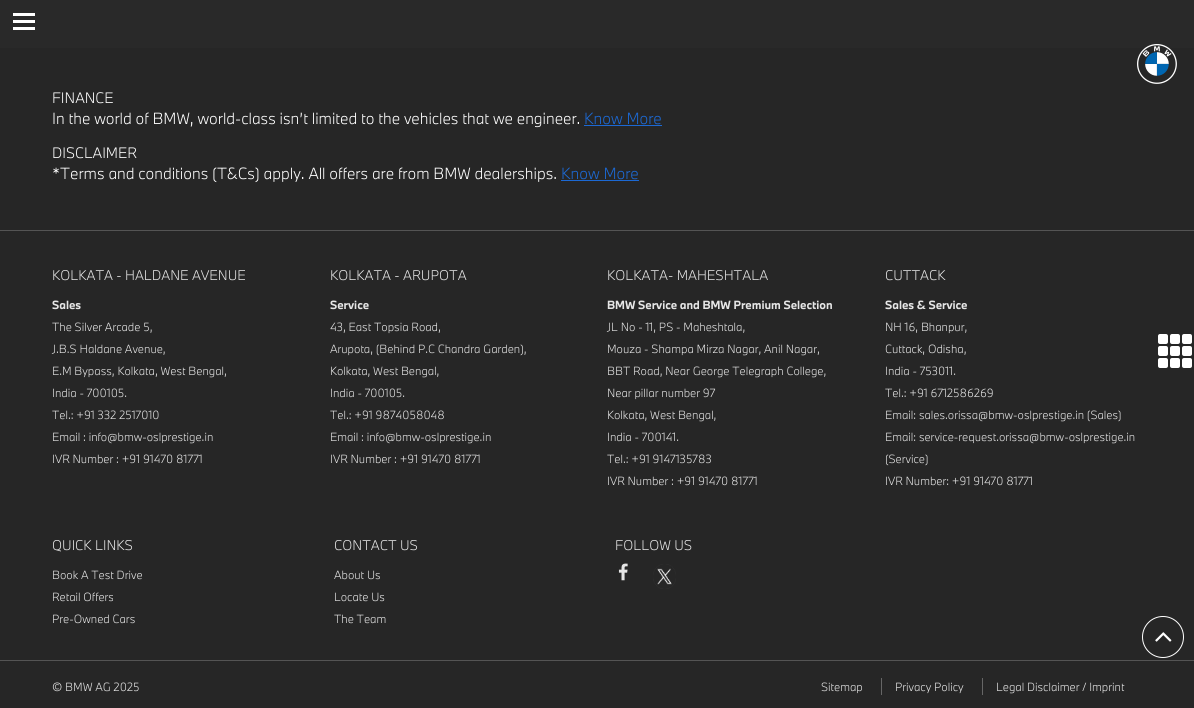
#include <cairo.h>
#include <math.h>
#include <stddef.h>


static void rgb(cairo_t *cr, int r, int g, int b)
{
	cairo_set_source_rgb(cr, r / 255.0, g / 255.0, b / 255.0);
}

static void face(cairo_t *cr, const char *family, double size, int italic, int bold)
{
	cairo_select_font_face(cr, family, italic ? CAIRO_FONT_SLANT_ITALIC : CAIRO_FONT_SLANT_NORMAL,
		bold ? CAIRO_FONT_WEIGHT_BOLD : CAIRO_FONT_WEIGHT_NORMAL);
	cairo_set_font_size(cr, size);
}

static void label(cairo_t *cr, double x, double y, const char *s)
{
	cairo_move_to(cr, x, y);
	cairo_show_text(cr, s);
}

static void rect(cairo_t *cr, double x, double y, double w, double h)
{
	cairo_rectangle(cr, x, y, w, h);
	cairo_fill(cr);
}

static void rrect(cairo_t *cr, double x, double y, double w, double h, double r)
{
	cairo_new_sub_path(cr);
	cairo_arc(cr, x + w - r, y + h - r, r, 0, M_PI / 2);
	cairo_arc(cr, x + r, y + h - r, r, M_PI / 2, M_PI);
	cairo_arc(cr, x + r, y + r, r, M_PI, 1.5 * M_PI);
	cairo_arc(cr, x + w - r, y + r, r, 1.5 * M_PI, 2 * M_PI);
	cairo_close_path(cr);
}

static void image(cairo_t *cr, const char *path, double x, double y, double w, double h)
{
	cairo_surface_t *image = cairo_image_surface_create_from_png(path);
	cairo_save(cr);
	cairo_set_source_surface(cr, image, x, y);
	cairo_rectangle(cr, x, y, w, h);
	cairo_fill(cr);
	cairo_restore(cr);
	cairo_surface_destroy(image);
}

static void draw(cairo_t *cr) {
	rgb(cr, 38, 38, 38);
	cairo_paint(cr);
	rgb(cr, 41, 41, 41);
	rect(cr, 0, 0, 1194, 48);
	rgb(cr, 255, 255, 255);
	rect(cr, 13, 13, 22, 3);
	rect(cr, 13, 20, 22, 3);
	rect(cr, 13, 27, 22, 3);
	image(cr, "image0.png", 1137, 44, 40, 40);
	face(cr, "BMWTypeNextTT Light", 14, 0, 0);
	label(cr, 52, 103, "FINANCE");
	face(cr, "BMWTypeNextTT Light", 15, 0, 0);
	label(cr, 52, 124, "In the world of BMW, world-class isn’t limited to the vehicles that we engineer.");
	rgb(cr, 28, 105, 212);
	label(cr, 584, 124, "Know More");
	rect(cr, 584, 125, 78, 1);
	face(cr, "BMWTypeNextTT Light", 14, 0, 0);
	rgb(cr, 255, 255, 255);
	label(cr, 52, 158, "DISCLAIMER");
	face(cr, "BMWTypeNextTT Light", 15, 0, 0);
	label(cr, 52, 179, "*Terms and conditions (T&Cs) apply. All offers are from BMW dealerships.");
	rgb(cr, 28, 105, 212);
	label(cr, 561, 179, "Know More");
	rect(cr, 561, 180, 78, 1);
	rgb(cr, 84, 84, 84);
	rect(cr, 0, 230, 1194, 1);
	face(cr, "BMWTypeNextTT Light", 13, 0, 0);
	rgb(cr, 230, 230, 230);
	label(cr, 52, 280, "KOLKATA - HALDANE AVENUE");
	face(cr, "BMWTypeNextTT", 11, 0, 1);
	label(cr, 52, 309, "Sales");
	face(cr, "BMWTypeNextTT Light", 11, 0, 0);
	label(cr, 52, 331, "The Silver Arcade 5,");
	label(cr, 52, 353, "J.B.S Haldane Avenue,");
	label(cr, 52, 375, "E.M Bypass, Kolkata, West Bengal,");
	label(cr, 52, 397, "India - 700105.");
	label(cr, 52, 419, "Tel.: +91 332 2517010");
	label(cr, 52, 441, "Email : info@bmw-oslprestige.in");
	label(cr, 52, 463, "IVR Number : +91 91470 81771");
	face(cr, "BMWTypeNextTT Light", 13, 0, 0);
	label(cr, 330, 280, "KOLKATA - ARUPOTA");
	face(cr, "BMWTypeNextTT", 11, 0, 1);
	label(cr, 330, 309, "Service");
	face(cr, "BMWTypeNextTT Light", 11, 0, 0);
	label(cr, 330, 331, "43, East Topsia Road,");
	label(cr, 330, 353, "Arupota, (Behind P.C Chandra Garden),");
	label(cr, 330, 375, "Kolkata, West Bengal,");
	label(cr, 330, 397, "India - 700105.");
	label(cr, 330, 419, "Tel.: +91 9874058048");
	label(cr, 330, 441, "Email : info@bmw-oslprestige.in");
	label(cr, 330, 463, "IVR Number : +91 91470 81771");
	face(cr, "BMWTypeNextTT Light", 13, 0, 0);
	label(cr, 607, 280, "KOLKATA- MAHESHTALA");
	face(cr, "BMWTypeNextTT", 11, 0, 1);
	label(cr, 607, 309, "BMW Service and BMW Premium Selection");
	face(cr, "BMWTypeNextTT Light", 11, 0, 0);
	label(cr, 607, 331, "JL No - 11, PS - Maheshtala,");
	label(cr, 607, 353, "Mouza - Shampa Mirza Nagar, Anil Nagar,");
	label(cr, 607, 375, "BBT Road, Near George Telegraph College,");
	label(cr, 607, 397, "Near pillar number 97");
	label(cr, 607, 419, "Kolkata, West Bengal,");
	label(cr, 607, 441, "India - 700141.");
	label(cr, 607, 463, "Tel.: +91 9147135783");
	label(cr, 607, 485, "IVR Number : +91 91470 81771");
	face(cr, "BMWTypeNextTT Light", 13, 0, 0);
	label(cr, 885, 280, "CUTTACK");
	face(cr, "BMWTypeNextTT", 11, 0, 1);
	label(cr, 885, 309, "Sales & Service");
	face(cr, "BMWTypeNextTT Light", 11, 0, 0);
	label(cr, 885, 331, "NH 16, Bhanpur,");
	label(cr, 885, 353, "Cuttack, Odisha,");
	label(cr, 885, 375, "India - 753011.");
	label(cr, 885, 397, "Tel.: +91 6712586269");
	label(cr, 885, 419, "Email: sales.orissa@bmw-oslprestige.in (Sales)");
	label(cr, 885, 441, "Email: service-request.orissa@bmw-oslprestige.in");
	label(cr, 885, 463, "(Service)");
	label(cr, 885, 485, "IVR Number: +91 91470 81771");
	face(cr, "BMWTypeNextTT Light", 13, 0, 0);
	label(cr, 52, 550, "QUICK LINKS");
	face(cr, "BMWTypeNextTT Light", 11, 0, 0);
	label(cr, 52, 579, "Book A Test Drive");
	label(cr, 52, 601, "Retail Offers");
	label(cr, 52, 623, "Pre-Owned Cars");
	face(cr, "BMWTypeNextTT Light", 13, 0, 0);
	label(cr, 334, 550, "CONTACT US");
	face(cr, "BMWTypeNextTT Light", 11, 0, 0);
	label(cr, 334, 579, "About Us");
	label(cr, 334, 601, "Locate Us");
	label(cr, 334, 623, "The Team");
	face(cr, "BMWTypeNextTT Light", 13, 0, 0);
	label(cr, 615, 550, "FOLLOW US");
	image(cr, "image1.png", 618, 563, 10, 18);
	image(cr, "image2.png", 653, 564, 23, 25);
	rgb(cr, 84, 84, 84);
	rect(cr, 0, 660, 1194, 1);
	face(cr, "BMWTypeNextTT Light", 11, 0, 0);
	rgb(cr, 230, 230, 230);
	label(cr, 52, 691, "© BMW AG 2025");
	label(cr, 821, 691, "Sitemap");
	rgb(cr, 102, 102, 102);
	rect(cr, 881, 678, 1, 17);
	rgb(cr, 230, 230, 230);
	label(cr, 895, 691, "Privacy Policy");
	rgb(cr, 102, 102, 102);
	rect(cr, 982, 678, 1, 17);
	rgb(cr, 230, 230, 230);
	label(cr, 996, 691, "Legal Disclaimer / Imprint");
	rgb(cr, 255, 255, 255);
	rrect(cr, 1158, 334, 10, 10, 2);
	cairo_fill(cr);
	rrect(cr, 1170, 334, 10, 10, 2);
	cairo_fill(cr);
	rrect(cr, 1182, 334, 10, 10, 2);
	cairo_fill(cr);
	rrect(cr, 1158, 346, 10, 10, 2);
	cairo_fill(cr);
	rrect(cr, 1170, 346, 10, 10, 2);
	cairo_fill(cr);
	rrect(cr, 1182, 346, 10, 10, 2);
	cairo_fill(cr);
	rrect(cr, 1158, 358, 10, 10, 2);
	cairo_fill(cr);
	rrect(cr, 1170, 358, 10, 10, 2);
	cairo_fill(cr);
	rrect(cr, 1182, 358, 10, 10, 2);
	cairo_fill(cr);
	cairo_arc(cr, 1163, 637, 20.5, 0, 2 * M_PI);
	cairo_set_line_width(cr, 1);
	cairo_stroke(cr);
	image(cr, "image3.png", 1155, 632, 17, 10);
}

int main(void) {
	cairo_surface_t *surface = cairo_image_surface_create(CAIRO_FORMAT_RGB24, 1194, 708);
	cairo_t *cr = cairo_create(surface);
	cairo_font_options_t *options = cairo_font_options_create();
	cairo_font_options_set_hint_metrics(options, CAIRO_HINT_METRICS_OFF);
	cairo_font_options_set_hint_style(options, CAIRO_HINT_STYLE_NONE);
	cairo_set_font_options(cr, options);
	cairo_set_miter_limit(cr, 4);
	draw(cr);
	cairo_surface_write_to_png(surface, "render.png");
	cairo_font_options_destroy(options);
	cairo_destroy(cr);
	cairo_surface_destroy(surface);
	return 0;
}
